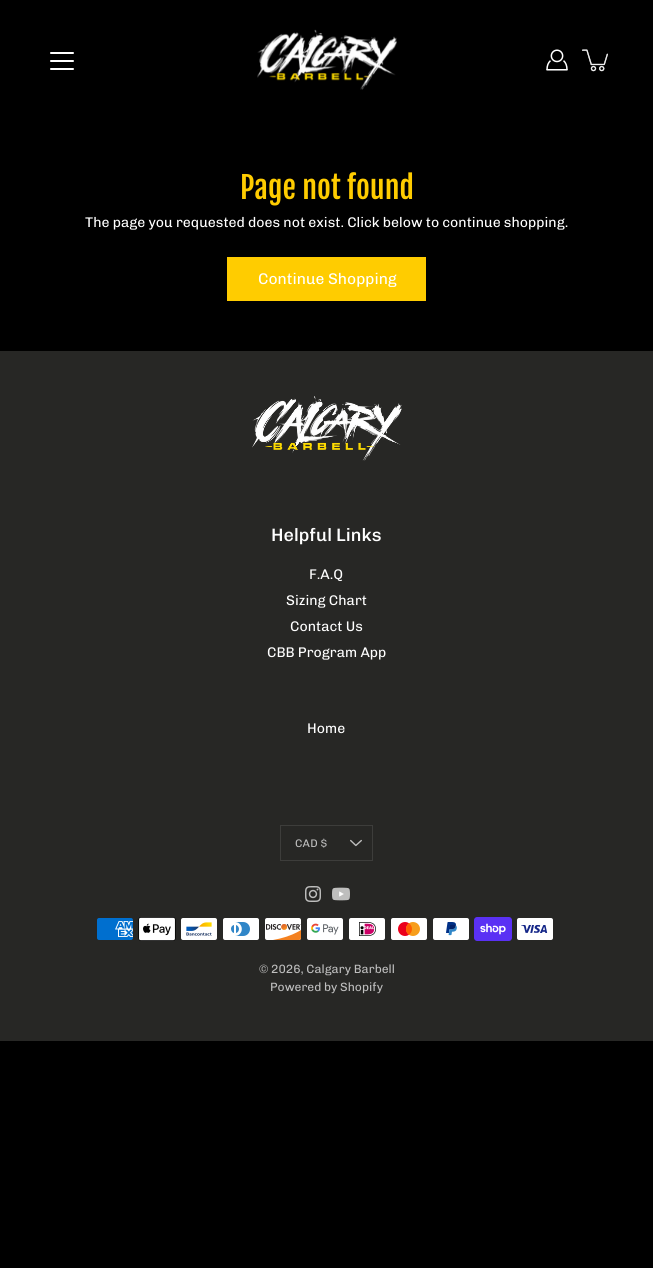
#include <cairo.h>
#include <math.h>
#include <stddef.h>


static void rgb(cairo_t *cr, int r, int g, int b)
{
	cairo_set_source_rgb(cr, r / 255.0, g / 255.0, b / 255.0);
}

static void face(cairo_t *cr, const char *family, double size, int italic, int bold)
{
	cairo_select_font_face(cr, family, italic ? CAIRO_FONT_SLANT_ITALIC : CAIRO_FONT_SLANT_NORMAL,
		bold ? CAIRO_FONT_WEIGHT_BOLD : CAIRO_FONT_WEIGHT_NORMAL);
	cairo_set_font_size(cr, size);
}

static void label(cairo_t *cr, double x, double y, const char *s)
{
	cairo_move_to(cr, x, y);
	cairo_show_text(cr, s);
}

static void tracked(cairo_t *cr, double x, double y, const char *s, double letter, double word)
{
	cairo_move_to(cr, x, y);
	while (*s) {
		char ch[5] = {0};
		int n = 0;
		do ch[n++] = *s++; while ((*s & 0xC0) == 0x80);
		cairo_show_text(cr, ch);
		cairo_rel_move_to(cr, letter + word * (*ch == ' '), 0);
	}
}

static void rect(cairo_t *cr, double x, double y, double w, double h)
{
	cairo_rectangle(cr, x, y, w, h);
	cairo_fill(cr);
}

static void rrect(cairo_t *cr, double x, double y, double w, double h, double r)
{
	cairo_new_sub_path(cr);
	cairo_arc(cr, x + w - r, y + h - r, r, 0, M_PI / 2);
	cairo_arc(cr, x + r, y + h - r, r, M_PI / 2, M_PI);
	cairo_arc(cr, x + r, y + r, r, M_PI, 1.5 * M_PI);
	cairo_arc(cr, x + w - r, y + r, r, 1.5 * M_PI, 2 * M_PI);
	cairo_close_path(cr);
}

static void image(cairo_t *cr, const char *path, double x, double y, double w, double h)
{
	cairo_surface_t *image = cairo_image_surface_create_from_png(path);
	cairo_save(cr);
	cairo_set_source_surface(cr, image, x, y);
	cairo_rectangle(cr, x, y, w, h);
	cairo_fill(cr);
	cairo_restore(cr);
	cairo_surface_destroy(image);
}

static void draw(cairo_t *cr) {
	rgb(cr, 0, 0, 0);
	cairo_paint(cr);
	image(cr, "image0.png", 257, 29, 140, 61);
	rgb(cr, 255, 255, 255);
	rrect(cr, 50, 60, 24, 2, 1);
	cairo_fill(cr);
	rrect(cr, 50, 52, 24, 2, 1);
	cairo_fill(cr);
	rrect(cr, 50, 68, 24, 2, 1);
	cairo_fill(cr);
	image(cr, "image1.png", 546, 49, 22, 22);
	image(cr, "image2.png", 582, 49, 26, 23);
	face(cr, "Fjalla One", 30, 0, 0);
	rgb(cr, 255, 204, 0);
	label(cr, 240, 199, "Page not found");
	face(cr, "Chivo", 14, 0, 0);
	rgb(cr, 255, 255, 255);
	label(cr, 85, 227, "The page you requested does not exist. Click below to continue shopping.");
	rgb(cr, 255, 204, 0);
	rect(cr, 227, 257, 199, 44);
	face(cr, "Chivo", 15.5, 0, 0);
	rgb(cr, 255, 255, 255);
	label(cr, 258, 284, "Continue Shopping");
	rgb(cr, 39, 39, 37);
	rect(cr, 0, 351, 653, 690);
	image(cr, "image3.png", 252, 396, 150, 65);
	face(cr, "Chivo Medium", 18, 0, 0);
	rgb(cr, 255, 255, 255);
	label(cr, 271, 541, "Helpful Links");
	face(cr, "Chivo", 14, 0, 0);
	label(cr, 309, 579, "F.A.Q");
	label(cr, 286, 605, "Sizing Chart");
	label(cr, 290, 631, "Contact Us");
	label(cr, 267, 657, "CBB Program App");
	label(cr, 307, 733, "Home");
	cairo_rectangle(cr, 280.5, 825.5, 92, 35);
	rgb(cr, 61, 61, 59);
	cairo_set_line_width(cr, 1);
	cairo_stroke(cr);
	face(cr, "Chivo", 11, 0, 0);
	rgb(cr, 190, 190, 190);
	tracked(cr, 295, 847, "CAD $", 0.25, 0);
	image(cr, "image4.png", 350, 839, 12, 8);
	image(cr, "image5.png", 305, 886, 16, 16);
	image(cr, "image6.png", 332, 887, 18, 14);
	image(cr, "image7.png", 97, 918, 36, 22);
	image(cr, "image8.png", 138, 917, 38, 24);
	image(cr, "image9.png", 181, 918, 36, 22);
	image(cr, "image10.png", 223, 918, 36, 22);
	image(cr, "image11.png", 265, 918, 36, 22);
	image(cr, "image12.png", 307, 918, 36, 22);
	image(cr, "image13.png", 349, 918, 36, 22);
	image(cr, "image14.png", 391, 918, 36, 22);
	image(cr, "image15.png", 433, 918, 36, 22);
	image(cr, "image16.png", 474, 917, 38, 24);
	image(cr, "image17.png", 517, 918, 36, 22);
	face(cr, "Chivo", 12, 0, 0);
	label(cr, 259, 973, "© 2026, Calgary Barbell");
	label(cr, 270, 991, "Powered by Shopify");
}

int main(void) {
	cairo_surface_t *surface = cairo_image_surface_create(CAIRO_FORMAT_RGB24, 653, 1268);
	cairo_t *cr = cairo_create(surface);
	cairo_font_options_t *options = cairo_font_options_create();
	cairo_font_options_set_hint_metrics(options, CAIRO_HINT_METRICS_OFF);
	cairo_font_options_set_hint_style(options, CAIRO_HINT_STYLE_NONE);
	cairo_set_font_options(cr, options);
	cairo_set_miter_limit(cr, 4);
	draw(cr);
	cairo_surface_write_to_png(surface, "render.png");
	cairo_font_options_destroy(options);
	cairo_destroy(cr);
	cairo_surface_destroy(surface);
	return 0;
}
